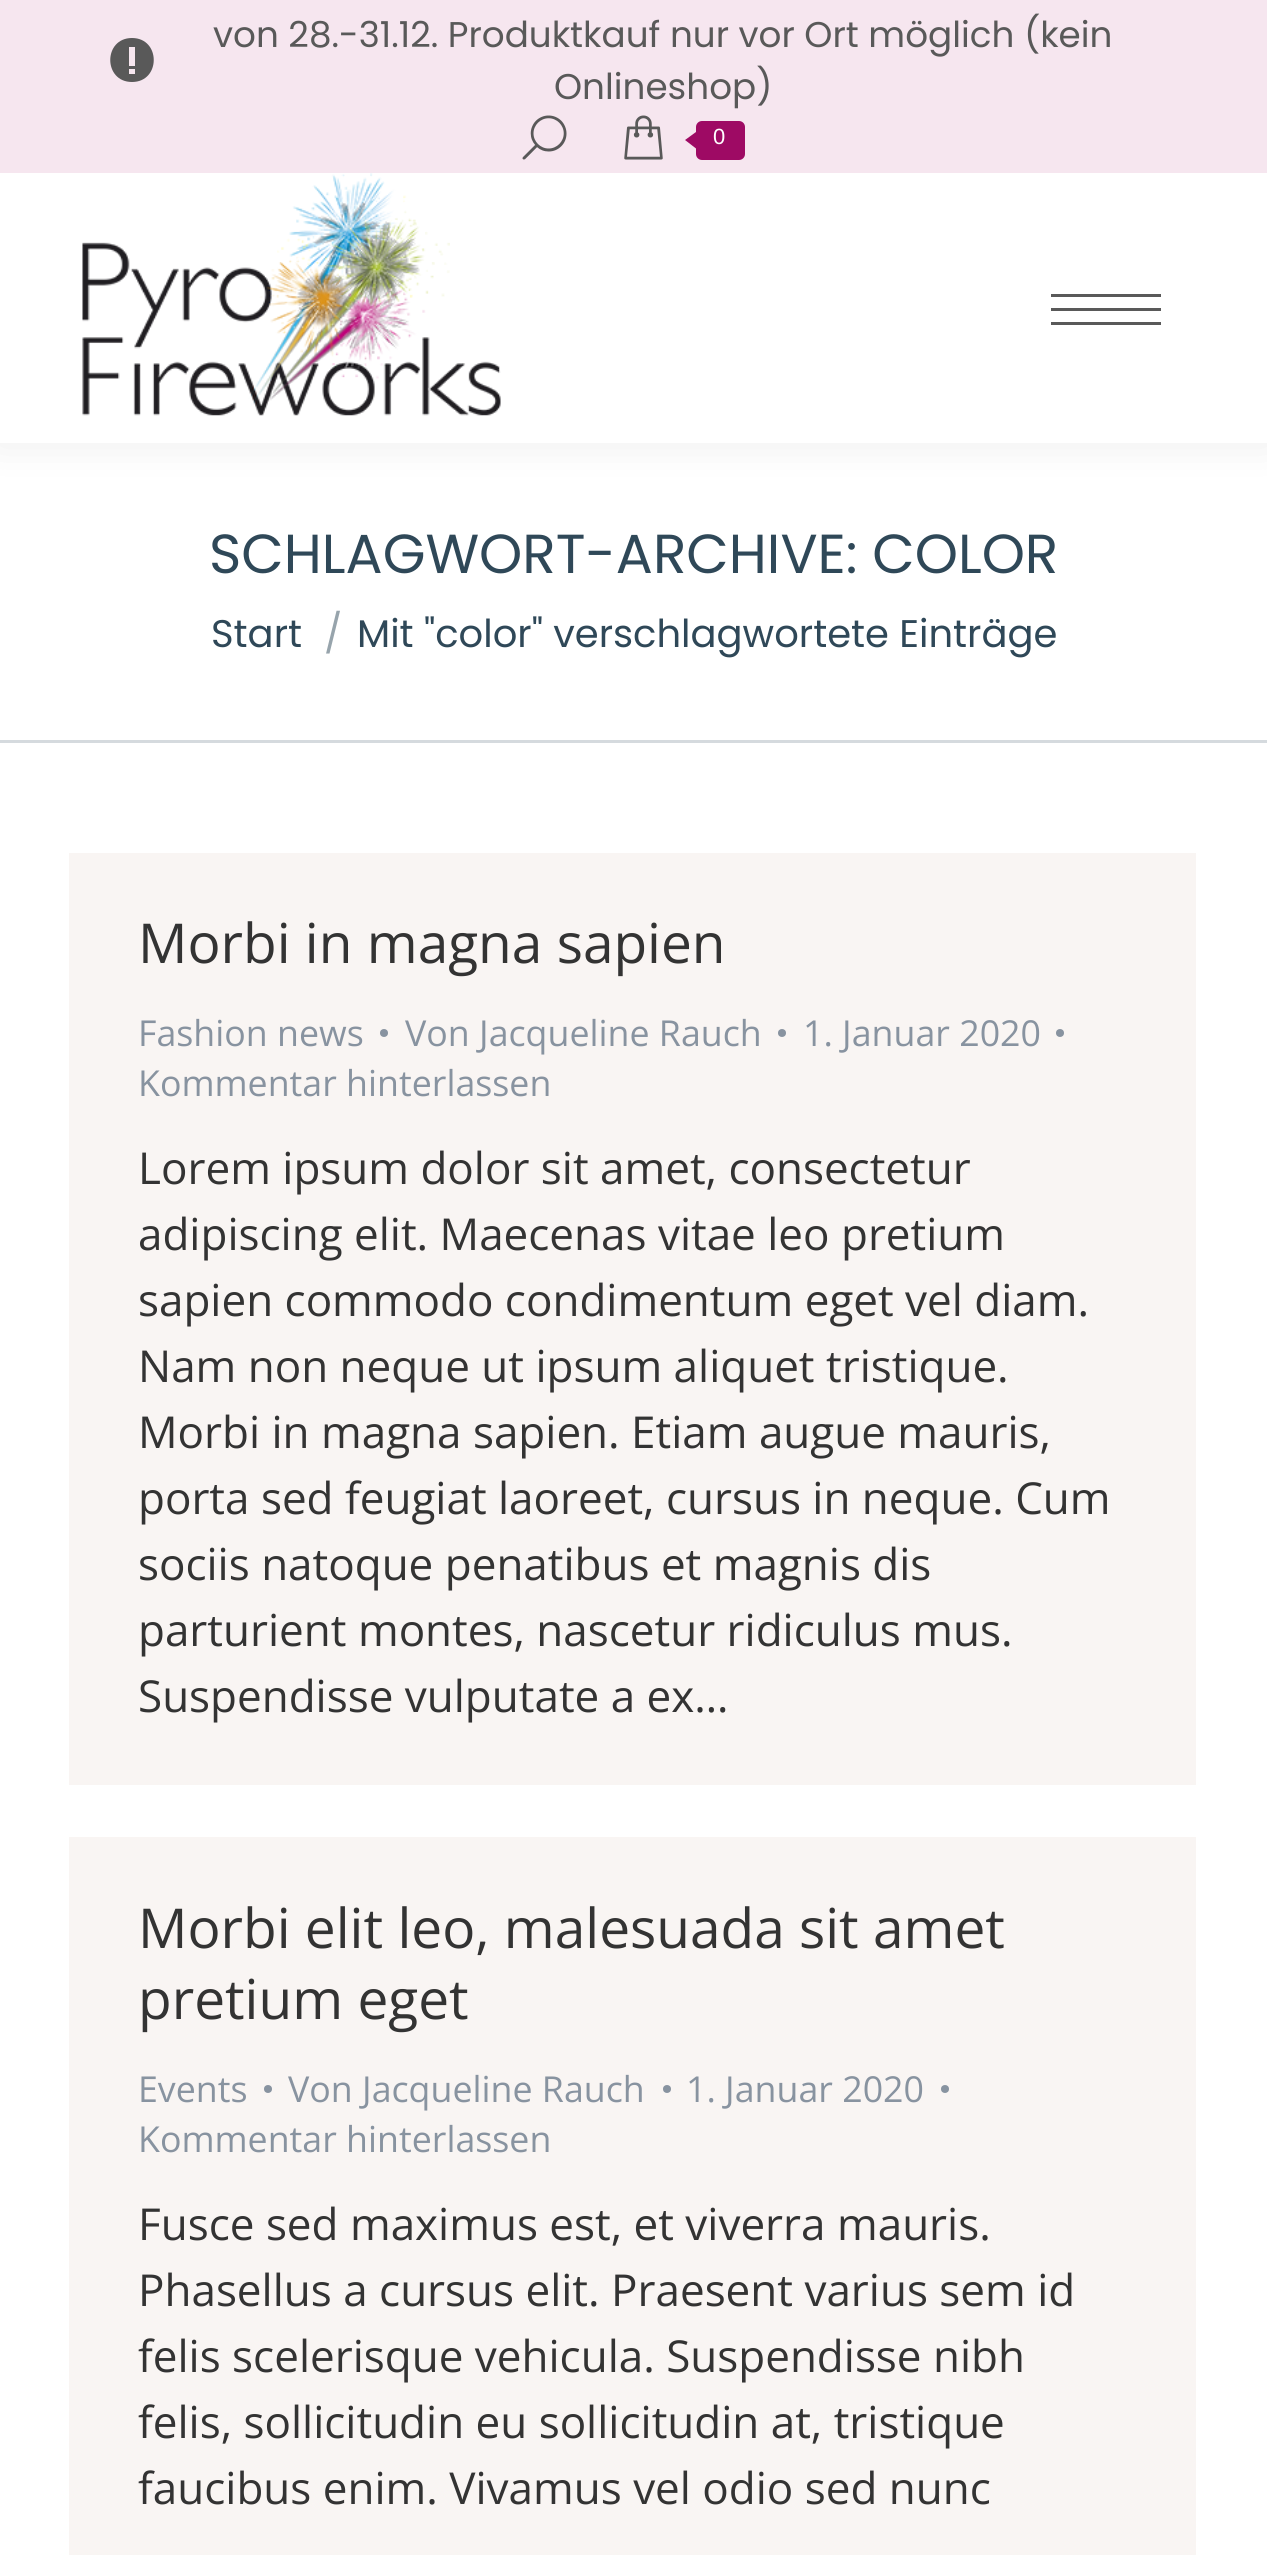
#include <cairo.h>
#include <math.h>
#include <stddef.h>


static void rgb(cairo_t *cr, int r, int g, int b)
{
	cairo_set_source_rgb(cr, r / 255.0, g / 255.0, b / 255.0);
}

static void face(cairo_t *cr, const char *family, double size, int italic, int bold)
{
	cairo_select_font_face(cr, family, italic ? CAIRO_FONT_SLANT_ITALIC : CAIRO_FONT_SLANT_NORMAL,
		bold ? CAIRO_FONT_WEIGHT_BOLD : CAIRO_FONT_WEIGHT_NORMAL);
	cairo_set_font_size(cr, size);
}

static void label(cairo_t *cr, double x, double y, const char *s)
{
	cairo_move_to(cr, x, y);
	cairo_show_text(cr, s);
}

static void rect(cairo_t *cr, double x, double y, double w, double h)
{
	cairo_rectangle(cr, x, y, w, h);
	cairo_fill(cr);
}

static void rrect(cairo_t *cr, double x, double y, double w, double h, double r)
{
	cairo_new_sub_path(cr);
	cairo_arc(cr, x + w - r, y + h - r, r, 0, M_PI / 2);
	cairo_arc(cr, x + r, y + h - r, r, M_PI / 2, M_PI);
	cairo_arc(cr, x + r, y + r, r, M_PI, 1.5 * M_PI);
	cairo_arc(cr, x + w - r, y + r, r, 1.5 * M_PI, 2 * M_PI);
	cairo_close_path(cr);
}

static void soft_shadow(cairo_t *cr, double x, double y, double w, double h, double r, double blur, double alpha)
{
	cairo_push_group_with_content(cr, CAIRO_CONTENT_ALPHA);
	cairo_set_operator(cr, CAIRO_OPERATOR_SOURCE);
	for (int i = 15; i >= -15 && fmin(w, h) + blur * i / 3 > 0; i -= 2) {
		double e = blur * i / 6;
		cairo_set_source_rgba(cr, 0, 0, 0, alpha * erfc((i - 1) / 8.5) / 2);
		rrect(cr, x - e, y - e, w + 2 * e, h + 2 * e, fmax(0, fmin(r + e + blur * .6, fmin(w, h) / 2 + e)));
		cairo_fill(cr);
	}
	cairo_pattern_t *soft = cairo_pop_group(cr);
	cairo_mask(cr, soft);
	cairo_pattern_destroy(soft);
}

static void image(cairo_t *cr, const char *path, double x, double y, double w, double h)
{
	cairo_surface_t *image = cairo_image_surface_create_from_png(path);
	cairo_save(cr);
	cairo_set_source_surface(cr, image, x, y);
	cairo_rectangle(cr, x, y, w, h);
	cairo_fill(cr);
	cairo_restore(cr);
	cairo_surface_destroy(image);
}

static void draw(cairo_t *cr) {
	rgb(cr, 255, 255, 255);
	cairo_paint(cr);
	rgb(cr, 0, 0, 0);
	soft_shadow(cr, -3, -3, 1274, 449, 0, 20.5, 0.07);
	rgb(cr, 255, 255, 255);
	rect(cr, 0, 173, 1267, 270);
	rgb(cr, 246, 230, 239);
	rect(cr, 0, 0, 1267, 173);
	rgb(cr, 89, 89, 89);
	cairo_new_path(cr);
	cairo_move_to(cr, 132, 38);
	cairo_curve_to(cr, 103, 38, 103, 82, 132, 82);
	cairo_curve_to(cr, 161, 82, 161, 38, 132, 38);
	cairo_close_path(cr);
	cairo_move_to(cr, 135, 74);
	cairo_line_to(cr, 129, 74);
	cairo_line_to(cr, 129, 69);
	cairo_line_to(cr, 135, 69);
	cairo_close_path(cr);
	cairo_move_to(cr, 135, 66);
	cairo_line_to(cr, 129, 66);
	cairo_line_to(cr, 129, 47);
	cairo_line_to(cr, 135, 47);
	cairo_close_path(cr);
	cairo_fill(cr);
	face(cr, "Poppins", 35.75, 0, 0);
	label(cr, 213, 47, "von 28.-31.12. Produktkauf nur vor Ort möglich (kein");
	label(cr, 554, 99, "Onlineshop)");
	image(cr, "image0.png", 522, 115, 45, 45);
	image(cr, "image1.png", 624, 115, 39, 45);
	rgb(cr, 158, 10, 100);
	rrect(cr, 696, 121, 49, 39, 6);
	cairo_fill(cr);
	cairo_new_path(cr);
	cairo_move_to(cr, 696, 132);
	cairo_line_to(cr, 696, 148.5);
	cairo_line_to(cr, 685, 140);
	cairo_close_path(cr);
	cairo_fill(cr);
	face(cr, "Liberation Sans", 22, 0, 0);
	rgb(cr, 255, 255, 255);
	label(cr, 713, 144, "0");
	image(cr, "image2.png", 82, 173, 419, 243);
	rgb(cr, 89, 89, 89);
	rect(cr, 1051, 294, 110, 3);
	rect(cr, 1051, 308, 110, 3);
	rect(cr, 1051, 322, 110, 3);
	rgb(cr, 213, 218, 222);
	rect(cr, 0, 740, 1267, 3);
	face(cr, "Poppins", 55, 0, 0);
	rgb(cr, 47, 72, 88);
	label(cr, 209, 573, "SCHLAGWORT-ARCHIVE: COLOR");
	face(cr, "Poppins", 38.5, 0, 0);
	label(cr, 211, 647, "Start");
	rgb(cr, 151, 164, 172);
	label(cr, 324, 647, "/");
	rgb(cr, 47, 72, 88);
	label(cr, 357, 647, "Mit \"color\" verschlagwortete Einträge");
	rgb(cr, 249, 245, 243);
	rect(cr, 69, 853, 1127, 932);
	face(cr, "Open Sans", 55, 0, 0);
	rgb(cr, 51, 51, 51);
	label(cr, 138, 963, "Morbi in magna sapien");
	face(cr, "Open Sans", 35.75, 0, 0);
	rgb(cr, 136, 147, 160);
	label(cr, 138, 1046, "Fashion news");
	cairo_new_path(cr);
	cairo_arc(cr, 384, 1033, 4, 0, 2 * M_PI);
	cairo_fill(cr);
	label(cr, 405, 1046, "Von Jacqueline Rauch");
	cairo_new_path(cr);
	cairo_arc(cr, 782, 1033, 4, 0, 2 * M_PI);
	cairo_fill(cr);
	label(cr, 803, 1046, "1. Januar 2020");
	cairo_new_path(cr);
	cairo_arc(cr, 1060, 1033, 4, 0, 2 * M_PI);
	cairo_fill(cr);
	label(cr, 138, 1096, "Kommentar hinterlassen");
	face(cr, "Open Sans", 44, 0, 0);
	rgb(cr, 51, 51, 51);
	label(cr, 138, 1184, "Lorem ipsum dolor sit amet, consectetur");
	label(cr, 138, 1250, "adipiscing elit. Maecenas vitae leo pretium");
	label(cr, 138, 1316, "sapien commodo condimentum eget vel diam.");
	label(cr, 138, 1382, "Nam non neque ut ipsum aliquet tristique.");
	label(cr, 138, 1448, "Morbi in magna sapien. Etiam augue mauris,");
	label(cr, 138, 1514, "porta sed feugiat laoreet, cursus in neque. Cum");
	label(cr, 138, 1580, "sociis natoque penatibus et magnis dis");
	label(cr, 138, 1646, "parturient montes, nascetur ridiculus mus.");
	label(cr, 138, 1712, "Suspendisse vulputate a ex…");
	rgb(cr, 249, 245, 243);
	rect(cr, 69, 1837, 1127, 718);
	face(cr, "Open Sans", 55, 0, 0);
	rgb(cr, 51, 51, 51);
	label(cr, 138, 1948, "Morbi elit leo, malesuada sit amet");
	label(cr, 138, 2019, "pretium eget");
	face(cr, "Open Sans", 35.75, 0, 0);
	rgb(cr, 136, 147, 160);
	label(cr, 138, 2102, "Events");
	cairo_new_path(cr);
	cairo_arc(cr, 268, 2089, 4, 0, 2 * M_PI);
	cairo_fill(cr);
	label(cr, 288, 2102, "Von Jacqueline Rauch");
	cairo_new_path(cr);
	cairo_arc(cr, 667, 2089, 4, 0, 2 * M_PI);
	cairo_fill(cr);
	label(cr, 686, 2102, "1. Januar 2020");
	cairo_new_path(cr);
	cairo_arc(cr, 945, 2089, 4, 0, 2 * M_PI);
	cairo_fill(cr);
	label(cr, 138, 2152, "Kommentar hinterlassen");
	face(cr, "Open Sans", 44, 0, 0);
	rgb(cr, 51, 51, 51);
	label(cr, 138, 2240, "Fusce sed maximus est, et viverra mauris.");
	label(cr, 138, 2306, "Phasellus a cursus elit. Praesent varius sem id");
	label(cr, 138, 2372, "felis scelerisque vehicula. Suspendisse nibh");
	label(cr, 138, 2438, "felis, sollicitudin eu sollicitudin at, tristique");
	label(cr, 138, 2504, "faucibus enim. Vivamus vel odio sed nunc");
}

int main(void) {
	cairo_surface_t *surface = cairo_image_surface_create(CAIRO_FORMAT_RGB24, 1267, 2555);
	cairo_t *cr = cairo_create(surface);
	cairo_font_options_t *options = cairo_font_options_create();
	cairo_font_options_set_hint_metrics(options, CAIRO_HINT_METRICS_OFF);
	cairo_font_options_set_hint_style(options, CAIRO_HINT_STYLE_NONE);
	cairo_set_font_options(cr, options);
	cairo_set_miter_limit(cr, 4);
	draw(cr);
	cairo_surface_write_to_png(surface, "render.png");
	cairo_font_options_destroy(options);
	cairo_destroy(cr);
	cairo_surface_destroy(surface);
	return 0;
}
